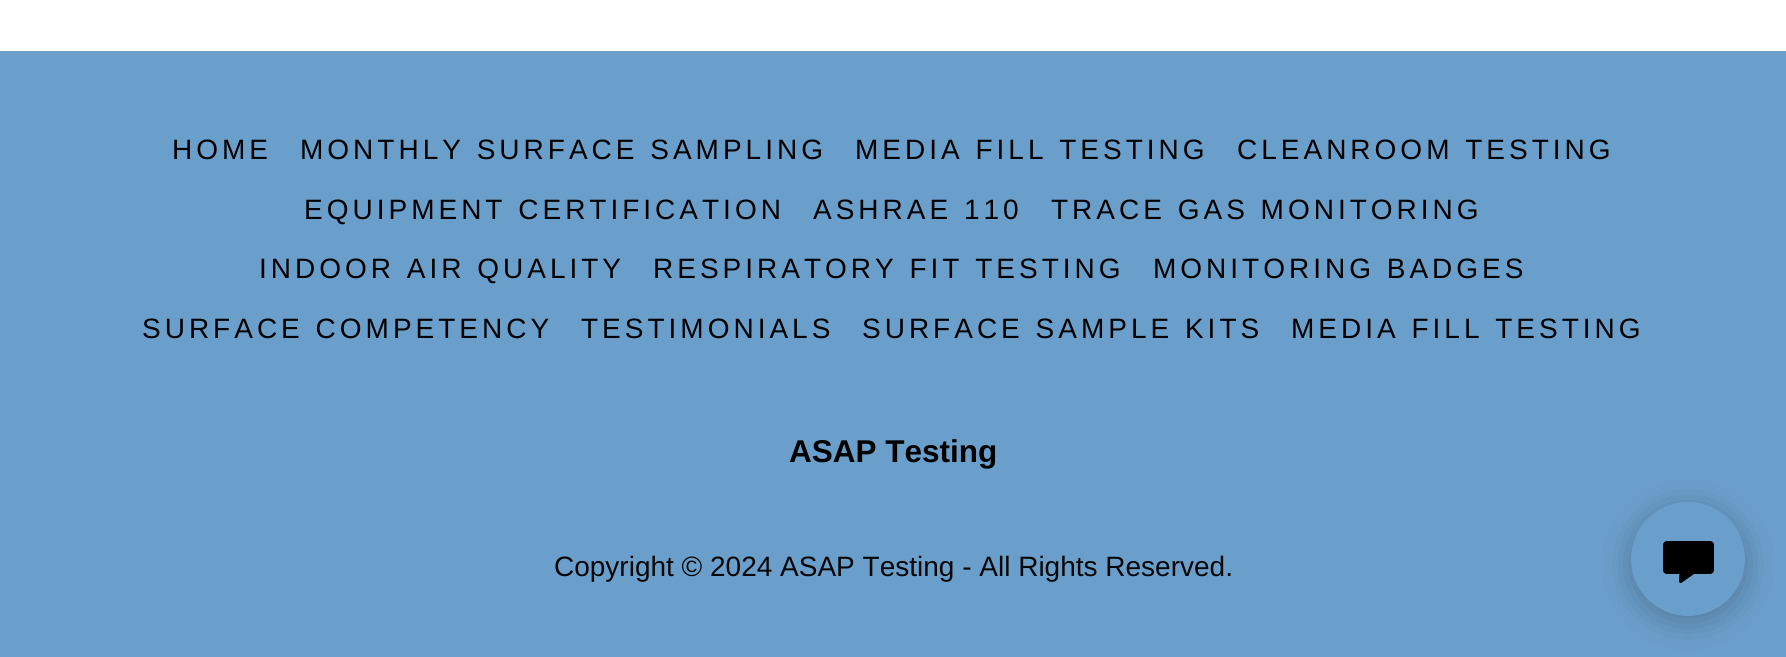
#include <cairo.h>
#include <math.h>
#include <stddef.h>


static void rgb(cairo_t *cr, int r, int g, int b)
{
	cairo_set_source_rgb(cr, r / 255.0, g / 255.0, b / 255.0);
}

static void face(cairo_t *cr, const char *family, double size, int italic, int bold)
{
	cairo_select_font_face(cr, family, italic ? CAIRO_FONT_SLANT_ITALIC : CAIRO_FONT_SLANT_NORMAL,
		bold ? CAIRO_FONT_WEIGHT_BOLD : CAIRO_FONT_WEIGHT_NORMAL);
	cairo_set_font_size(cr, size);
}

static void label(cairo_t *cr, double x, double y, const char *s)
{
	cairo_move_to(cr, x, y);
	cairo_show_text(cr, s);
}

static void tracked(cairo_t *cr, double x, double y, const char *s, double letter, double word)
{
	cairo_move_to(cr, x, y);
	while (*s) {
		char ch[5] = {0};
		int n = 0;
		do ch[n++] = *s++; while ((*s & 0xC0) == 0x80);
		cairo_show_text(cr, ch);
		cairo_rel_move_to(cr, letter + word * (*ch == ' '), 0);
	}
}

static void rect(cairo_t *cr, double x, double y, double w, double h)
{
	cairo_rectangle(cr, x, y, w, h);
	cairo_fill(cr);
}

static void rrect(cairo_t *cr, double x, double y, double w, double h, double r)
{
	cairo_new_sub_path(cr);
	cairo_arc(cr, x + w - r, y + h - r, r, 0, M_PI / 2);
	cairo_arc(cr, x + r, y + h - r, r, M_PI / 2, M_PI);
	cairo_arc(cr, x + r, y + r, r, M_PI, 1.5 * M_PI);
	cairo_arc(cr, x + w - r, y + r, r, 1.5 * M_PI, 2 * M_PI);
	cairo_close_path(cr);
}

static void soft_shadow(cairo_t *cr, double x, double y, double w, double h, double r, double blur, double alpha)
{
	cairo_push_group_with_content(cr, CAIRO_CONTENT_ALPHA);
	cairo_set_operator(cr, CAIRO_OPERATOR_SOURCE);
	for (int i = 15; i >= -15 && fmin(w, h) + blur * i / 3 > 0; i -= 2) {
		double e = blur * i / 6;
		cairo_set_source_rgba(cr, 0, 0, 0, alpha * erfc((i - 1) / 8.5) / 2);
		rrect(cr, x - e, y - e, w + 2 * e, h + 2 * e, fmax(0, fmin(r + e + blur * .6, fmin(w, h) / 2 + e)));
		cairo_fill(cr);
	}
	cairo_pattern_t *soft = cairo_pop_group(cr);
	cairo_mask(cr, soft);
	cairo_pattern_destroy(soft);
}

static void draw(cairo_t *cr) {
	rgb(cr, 107, 159, 203);
	cairo_paint(cr);
	rgb(cr, 255, 255, 255);
	rect(cr, 0, 0, 1786, 51);
	face(cr, "Liberation Sans", 28, 0, 0);
	rgb(cr, 0, 0, 0);
	tracked(cr, 172, 159, "HOME", 4, 0);
	tracked(cr, 300, 159, "MONTHLY SURFACE SAMPLING", 4, 0);
	tracked(cr, 855, 159, "MEDIA FILL TESTING", 4, 0);
	tracked(cr, 1237, 159, "CLEANROOM TESTING", 4, 0);
	tracked(cr, 304, 219, "EQUIPMENT CERTIFICATION", 4, 0);
	tracked(cr, 813, 219, "ASHRAE 110", 4, 0);
	tracked(cr, 1051, 219, "TRACE GAS MONITORING", 4, 0);
	tracked(cr, 259, 278, "INDOOR AIR QUALITY", 4, 0);
	tracked(cr, 653, 278, "RESPIRATORY FIT TESTING", 4, 0);
	tracked(cr, 1153, 278, "MONITORING BADGES", 4, 0);
	tracked(cr, 142, 338, "SURFACE COMPETENCY", 4, 0);
	tracked(cr, 581, 338, "TESTIMONIALS", 4, 0);
	tracked(cr, 862, 338, "SURFACE SAMPLE KITS", 4, 0);
	tracked(cr, 1291, 338, "MEDIA FILL TESTING", 4, 0);
	face(cr, "Liberation Sans", 31.5, 0, 1);
	label(cr, 789, 462, "ASAP Testing");
	face(cr, "Liberation Sans", 28, 0, 0);
	rgb(cr, 6, 6, 6);
	label(cr, 554, 576, "Copyright © 2024 ASAP Testing - All Rights Reserved.");
	rgb(cr, 0, 0, 0);
	soft_shadow(cr, 1631, 508, 114, 113, 56.5, 16, 0.25);
	rgb(cr, 107, 159, 203);
	cairo_arc(cr, 1688, 559, 57, 0, 2 * M_PI);
	cairo_fill(cr);
	rgb(cr, 0, 0, 0);
	rrect(cr, 1663, 541, 51, 33, 4);
	cairo_fill(cr);
	cairo_new_path(cr);
	cairo_move_to(cr, 1679, 581);
	cairo_line_to(cr, 1679.5, 572.5);
	cairo_curve_to(cr, 1680, 571.5, 1680.5, 570.5, 1681.5, 570.5);
	cairo_line_to(cr, 1693, 570.5);
	cairo_curve_to(cr, 1695, 570.5, 1695.5, 573, 1694, 574);
	cairo_line_to(cr, 1682, 582.5);
	cairo_curve_to(cr, 1681.5, 583, 1680.5, 583, 1680, 583);
	cairo_curve_to(cr, 1679.5, 582.5, 1679, 582, 1679, 581);
	cairo_close_path(cr);
	cairo_fill(cr);
}

int main(void) {
	cairo_surface_t *surface = cairo_image_surface_create(CAIRO_FORMAT_RGB24, 1786, 657);
	cairo_t *cr = cairo_create(surface);
	cairo_font_options_t *options = cairo_font_options_create();
	cairo_font_options_set_hint_metrics(options, CAIRO_HINT_METRICS_OFF);
	cairo_font_options_set_hint_style(options, CAIRO_HINT_STYLE_NONE);
	cairo_set_font_options(cr, options);
	cairo_set_miter_limit(cr, 4);
	draw(cr);
	cairo_surface_write_to_png(surface, "render.png");
	cairo_font_options_destroy(options);
	cairo_destroy(cr);
	cairo_surface_destroy(surface);
	return 0;
}
